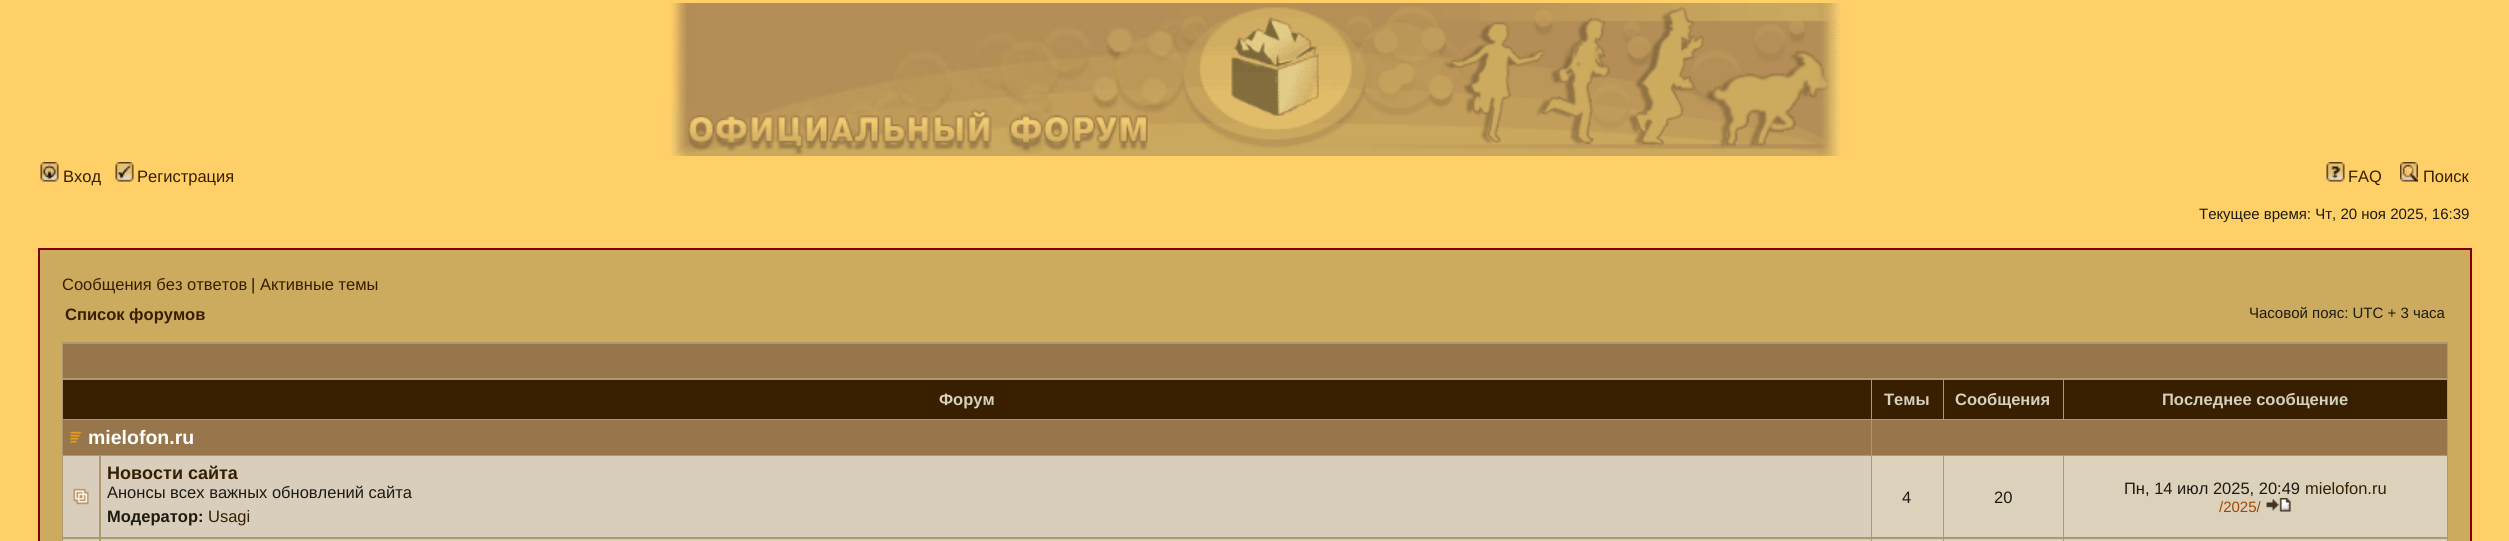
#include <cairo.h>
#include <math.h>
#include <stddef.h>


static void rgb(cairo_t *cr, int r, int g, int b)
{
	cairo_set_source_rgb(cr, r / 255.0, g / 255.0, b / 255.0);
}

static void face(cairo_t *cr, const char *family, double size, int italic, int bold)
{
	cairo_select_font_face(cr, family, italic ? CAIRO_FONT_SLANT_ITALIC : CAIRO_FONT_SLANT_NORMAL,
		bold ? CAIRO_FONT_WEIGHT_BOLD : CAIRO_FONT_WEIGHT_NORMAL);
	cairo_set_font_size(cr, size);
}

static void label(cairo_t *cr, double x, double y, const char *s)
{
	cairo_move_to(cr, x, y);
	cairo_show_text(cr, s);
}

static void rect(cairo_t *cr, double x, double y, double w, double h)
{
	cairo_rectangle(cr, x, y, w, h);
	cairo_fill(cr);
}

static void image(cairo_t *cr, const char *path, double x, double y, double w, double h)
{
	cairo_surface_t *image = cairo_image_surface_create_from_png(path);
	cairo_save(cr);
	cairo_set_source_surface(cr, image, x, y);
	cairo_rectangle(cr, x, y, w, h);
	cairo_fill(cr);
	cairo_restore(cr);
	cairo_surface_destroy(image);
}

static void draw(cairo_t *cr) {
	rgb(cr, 255, 208, 104);
	cairo_paint(cr);
	image(cr, "image0.png", 670, 3, 1171, 153);
	image(cr, "image1.png", 40, 162, 19, 20);
	face(cr, "Liberation Sans", 16.5, 0, 0);
	rgb(cr, 54, 31, 0);
	label(cr, 63, 182, "Вход");
	image(cr, "image2.png", 115, 162, 19, 20);
	label(cr, 137, 182, "Регистрация");
	image(cr, "image3.png", 2326, 162, 19, 20);
	label(cr, 2348, 182, "FAQ");
	image(cr, "image4.png", 2400, 162, 18, 20);
	label(cr, 2423, 182, "Поиск");
	face(cr, "Liberation Sans", 15, 0, 0);
	rgb(cr, 28, 27, 18);
	label(cr, 2199, 219, "Текущее время: Чт, 20 ноя 2025, 16:39");
	rgb(cr, 204, 170, 94);
	cairo_rectangle(cr, 39, 249, 2432, 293);
	cairo_fill_preserve(cr);
	rgb(cr, 128, 0, 0);
	cairo_stroke(cr);
	face(cr, "Liberation Sans", 16.5, 0, 0);
	rgb(cr, 54, 31, 0);
	label(cr, 62, 290, "Сообщения без ответов");
	rgb(cr, 28, 27, 18);
	label(cr, 251, 290, "|");
	rgb(cr, 54, 31, 0);
	label(cr, 260, 290, "Активные темы");
	face(cr, "Liberation Sans", 16.5, 0, 1);
	label(cr, 65, 320, "Список форумов");
	face(cr, "Liberation Sans", 15, 0, 0);
	rgb(cr, 28, 27, 18);
	label(cr, 2249, 318, "Часовой пояс: UTC + 3 часа");
	rgb(cr, 174, 152, 112);
	rect(cr, 62, 342, 2386, 199);
	rgb(cr, 151, 118, 75);
	rect(cr, 63, 344, 2384, 34);
	rgb(cr, 56, 31, 0);
	rect(cr, 63, 380, 1808, 39);
	face(cr, "Liberation Sans", 16.5, 0, 1);
	rgb(cr, 213, 209, 191);
	label(cr, 939, 405, "Форум");
	rgb(cr, 56, 31, 0);
	rect(cr, 1872, 380, 71, 39);
	rgb(cr, 213, 209, 191);
	label(cr, 1884, 405, "Темы");
	rgb(cr, 56, 31, 0);
	rect(cr, 1944, 380, 119, 39);
	rgb(cr, 213, 209, 191);
	label(cr, 1955, 405, "Сообщения");
	rgb(cr, 56, 31, 0);
	rect(cr, 2064, 380, 383, 39);
	rgb(cr, 213, 209, 191);
	label(cr, 2162, 405, "Последнее сообщение");
	rgb(cr, 151, 118, 75);
	rect(cr, 63, 420, 1808, 35);
	image(cr, "image5.png", 70, 431, 12, 12);
	face(cr, "Liberation Sans", 19.5, 0, 1);
	rgb(cr, 255, 255, 255);
	label(cr, 88, 444, "mielofon.ru");
	rgb(cr, 151, 118, 75);
	rect(cr, 1872, 420, 575, 35);
	rgb(cr, 217, 205, 187);
	rect(cr, 63, 456, 36, 81);
	image(cr, "image6.png", 73, 488, 16, 17);
	rect(cr, 101, 456, 1770, 81);
	face(cr, "Liberation Sans", 18, 0, 1);
	rgb(cr, 54, 31, 0);
	label(cr, 107, 479, "Новости сайта");
	face(cr, "Liberation Sans", 16.5, 0, 0);
	rgb(cr, 28, 27, 18);
	label(cr, 107, 498, "Анонсы всех важных обновлений сайта");
	face(cr, "Liberation Sans", 16.5, 0, 1);
	label(cr, 107, 522, "Модератор:");
	face(cr, "Liberation Sans", 16.5, 0, 0);
	rgb(cr, 54, 31, 0);
	label(cr, 208, 522, "Usagi");
	rgb(cr, 220, 210, 188);
	rect(cr, 1872, 456, 71, 81);
	rgb(cr, 28, 27, 18);
	label(cr, 1902, 503, "4");
	rgb(cr, 220, 210, 188);
	rect(cr, 1944, 456, 119, 81);
	rgb(cr, 28, 27, 18);
	label(cr, 1994, 503, "20");
	rgb(cr, 220, 210, 188);
	rect(cr, 2064, 456, 383, 81);
	rgb(cr, 28, 27, 18);
	label(cr, 2124, 494, "Пн, 14 июл 2025, 20:49");
	rgb(cr, 54, 31, 0);
	label(cr, 2305, 494, "mielofon.ru");
	face(cr, "Liberation Sans", 15, 0, 0);
	rgb(cr, 164, 70, 0);
	label(cr, 2219, 512, "/2025/");
	image(cr, "image7.png", 2266, 498, 25, 14);
	rgb(cr, 217, 205, 187);
	rect(cr, 63, 539, 36, 2);
	rect(cr, 101, 539, 1770, 2);
	rgb(cr, 220, 210, 188);
	rect(cr, 1872, 539, 71, 2);
	rect(cr, 1944, 539, 119, 2);
	rect(cr, 2064, 539, 383, 2);
}

int main(void) {
	cairo_surface_t *surface = cairo_image_surface_create(CAIRO_FORMAT_RGB24, 2509, 541);
	cairo_t *cr = cairo_create(surface);
	cairo_font_options_t *options = cairo_font_options_create();
	cairo_font_options_set_hint_metrics(options, CAIRO_HINT_METRICS_OFF);
	cairo_font_options_set_hint_style(options, CAIRO_HINT_STYLE_NONE);
	cairo_set_font_options(cr, options);
	cairo_set_miter_limit(cr, 4);
	draw(cr);
	cairo_surface_write_to_png(surface, "render.png");
	cairo_font_options_destroy(options);
	cairo_destroy(cr);
	cairo_surface_destroy(surface);
	return 0;
}
